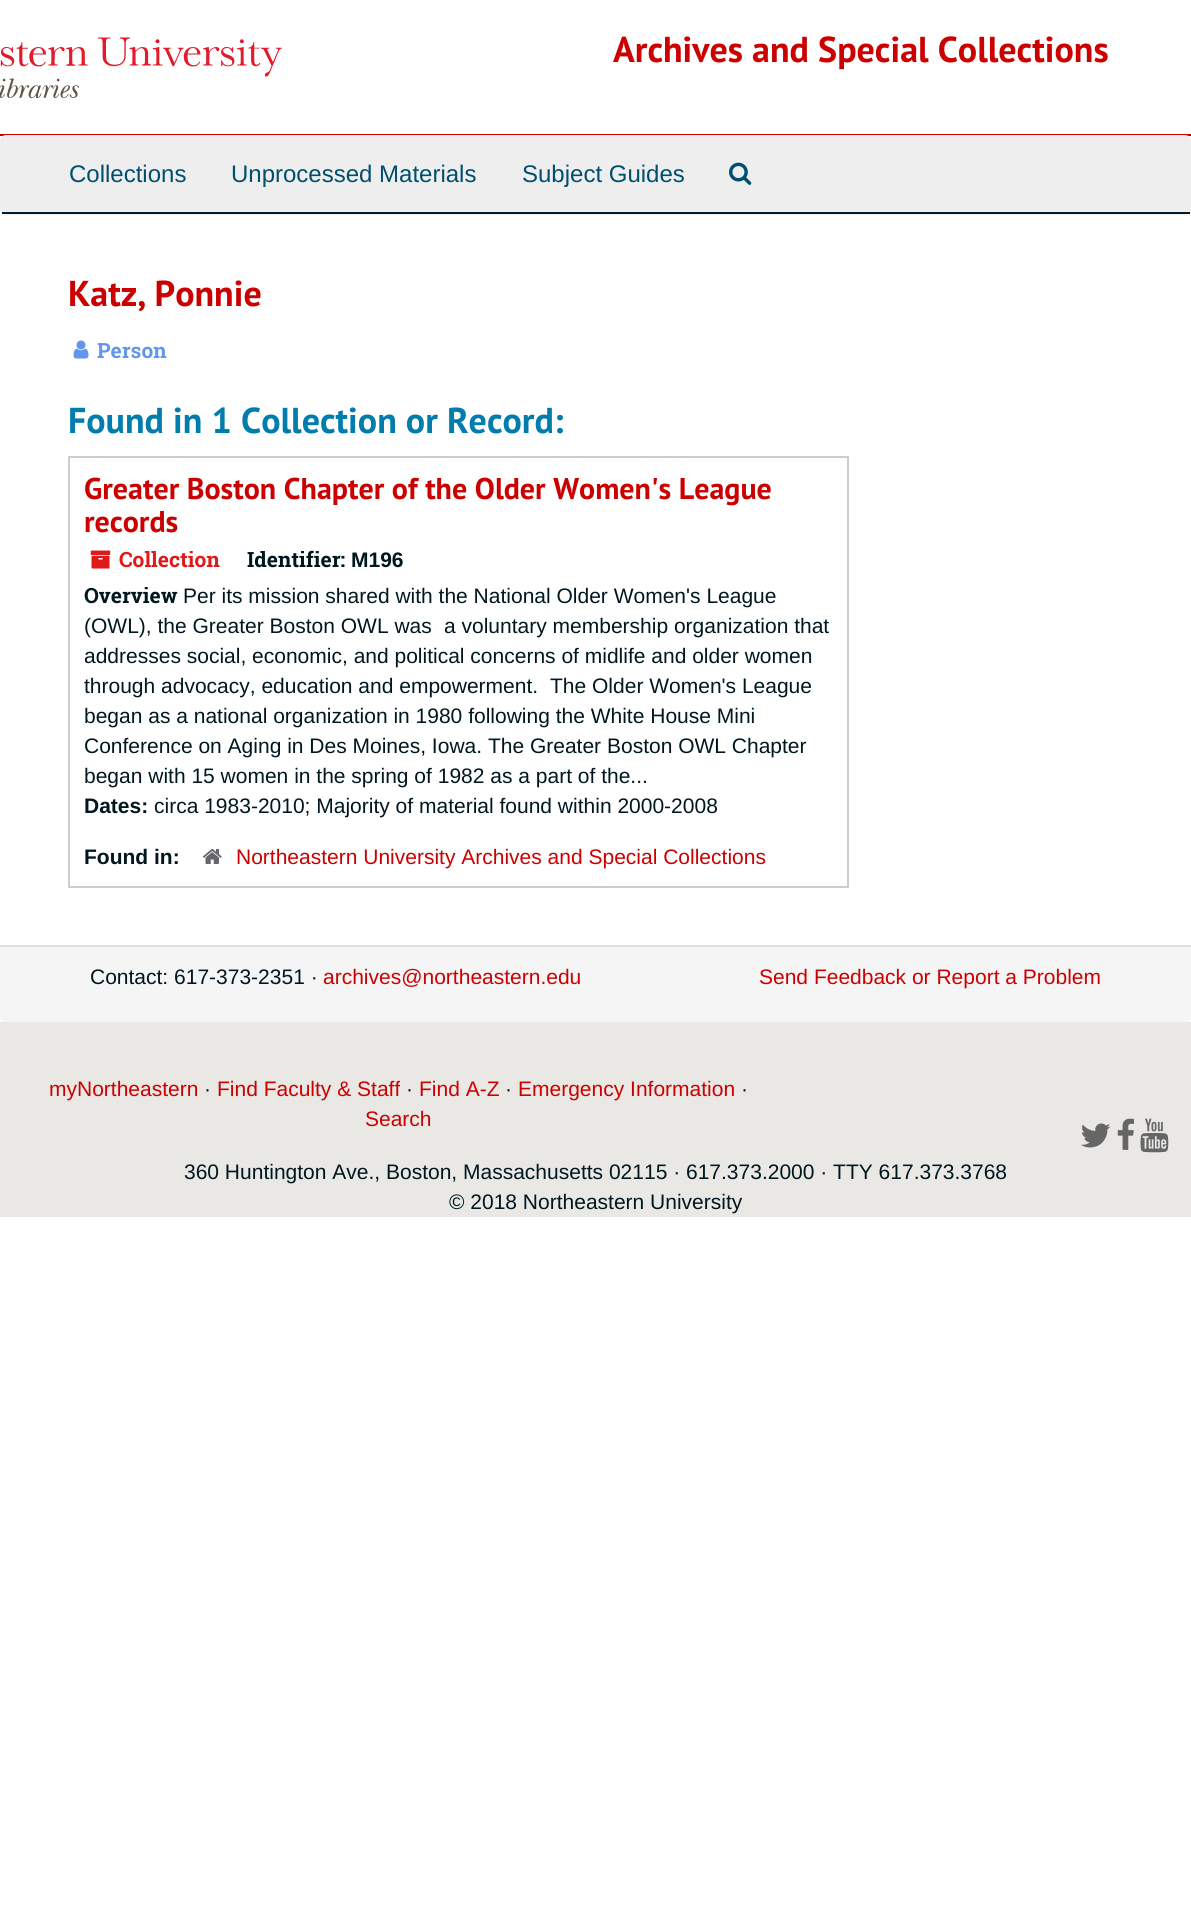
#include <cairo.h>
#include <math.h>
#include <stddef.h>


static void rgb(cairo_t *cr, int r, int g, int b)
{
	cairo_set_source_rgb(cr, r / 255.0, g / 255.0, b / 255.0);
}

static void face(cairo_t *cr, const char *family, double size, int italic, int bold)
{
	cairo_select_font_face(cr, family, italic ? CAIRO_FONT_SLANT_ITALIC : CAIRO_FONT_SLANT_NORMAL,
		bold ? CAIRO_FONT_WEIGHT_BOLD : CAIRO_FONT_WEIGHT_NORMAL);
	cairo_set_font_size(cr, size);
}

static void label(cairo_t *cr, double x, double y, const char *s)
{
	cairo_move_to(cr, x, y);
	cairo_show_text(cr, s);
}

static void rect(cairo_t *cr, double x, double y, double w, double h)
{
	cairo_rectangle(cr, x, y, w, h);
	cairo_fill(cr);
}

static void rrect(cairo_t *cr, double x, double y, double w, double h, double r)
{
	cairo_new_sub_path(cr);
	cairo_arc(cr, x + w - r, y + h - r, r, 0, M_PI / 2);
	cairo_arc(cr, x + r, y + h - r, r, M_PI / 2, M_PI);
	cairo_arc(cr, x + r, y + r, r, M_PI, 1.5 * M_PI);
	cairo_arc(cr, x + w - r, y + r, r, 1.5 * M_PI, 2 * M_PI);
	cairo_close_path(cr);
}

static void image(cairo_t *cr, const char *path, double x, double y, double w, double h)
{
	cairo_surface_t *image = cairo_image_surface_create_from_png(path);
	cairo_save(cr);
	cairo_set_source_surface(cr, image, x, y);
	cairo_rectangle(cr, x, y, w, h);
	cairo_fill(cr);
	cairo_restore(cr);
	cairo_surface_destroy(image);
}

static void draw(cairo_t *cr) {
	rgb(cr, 255, 255, 255);
	cairo_paint(cr);
	rgb(cr, 204, 0, 0);
	rect(cr, 0, 134, 1191, 2);
	image(cr, "image0.png", 0, 37, 282, 62);
	face(cr, "PT Sans", 36, 0, 1);
	label(cr, 613, 62, "Archives and Special Collections");
	rgb(cr, 238, 238, 238);
	rrect(cr, 1, 136, 1189, 78, 5);
	cairo_fill_preserve(cr);
	cairo_stroke(cr);
	rgb(cr, 4, 28, 47);
	rect(cr, 2, 212, 1188, 2);
	face(cr, "Liberation Sans", 24, 0, 0);
	rgb(cr, 0, 79, 111);
	label(cr, 69, 182, "Collections");
	label(cr, 231, 182, "Unprocessed Materials");
	label(cr, 522, 182, "Subject Guides");
	image(cr, "image1.png", 729, 162, 23, 23);
	face(cr, "PT Sans", 36, 0, 1);
	rgb(cr, 204, 0, 0);
	label(cr, 68, 306, "Katz, Ponnie");
	image(cr, "image2.png", 73, 340, 16, 19);
	face(cr, "Roboto Slab", 21, 0, 1);
	rgb(cr, 100, 149, 237);
	label(cr, 97, 358, "Person");
	face(cr, "PT Sans", 36, 0, 1);
	rgb(cr, 0, 124, 173);
	label(cr, 68, 433, "Found in 1 Collection or Record:");
	cairo_rectangle(cr, 69, 457, 779, 430);
	rgb(cr, 204, 204, 204);
	cairo_stroke(cr);
	face(cr, "PT Sans", 30, 0, 1);
	rgb(cr, 204, 0, 0);
	label(cr, 84, 499, "Greater Boston Chapter of the Older Women's League");
	label(cr, 84, 532, "records");
	image(cr, "image3.png", 90, 550, 21, 19);
	face(cr, "Roboto Slab", 21, 0, 1);
	rgb(cr, 224, 25, 25);
	label(cr, 119, 567, "Collection");
	rgb(cr, 0, 23, 31);
	label(cr, 247, 567, "Identifier:");
	face(cr, "Liberation Sans", 21, 0, 1);
	label(cr, 351, 567, "M196");
	face(cr, "Roboto Slab", 21, 0, 1);
	label(cr, 84, 603, "Overview");
	face(cr, "Liberation Sans", 21, 0, 0);
	label(cr, 183, 603, "Per its mission shared with the National Older Women's League");
	label(cr, 84, 633, "(OWL), the Greater Boston OWL was");
	label(cr, 444, 633, "a voluntary membership organization that");
	label(cr, 84, 663, "addresses social, economic, and political concerns of midlife and older women");
	label(cr, 84, 693, "through advocacy, education and empowerment.");
	label(cr, 550, 693, "The Older Women's League");
	label(cr, 84, 723, "began as a national organization in 1980 following the White House Mini");
	label(cr, 84, 753, "Conference on Aging in Des Moines, Iowa. The Greater Boston OWL Chapter");
	label(cr, 84, 783, "began with 15 women in the spring of 1982 as a part of the...");
	face(cr, "Liberation Sans", 21, 0, 1);
	label(cr, 84, 813, "Dates:");
	face(cr, "Liberation Sans", 21, 0, 0);
	label(cr, 154, 813, "circa 1983-2010; Majority of material found within 2000-2008");
	face(cr, "Liberation Sans", 21, 0, 1);
	label(cr, 84, 864, "Found in:");
	image(cr, "image4.png", 202, 849, 20, 15);
	face(cr, "Liberation Sans", 21, 0, 0);
	rgb(cr, 204, 0, 0);
	label(cr, 236, 864, "Northeastern University Archives and Special Collections");
	rgb(cr, 245, 245, 245);
	cairo_new_path(cr);
	cairo_move_to(cr, 0, 945);
	cairo_line_to(cr, 1191, 945);
	cairo_line_to(cr, 1191, 1017);
	cairo_curve_to(cr, 1191, 1020, 1189, 1022, 1186, 1022);
	cairo_line_to(cr, 5, 1022);
	cairo_curve_to(cr, 2, 1022, 0, 1020, 0, 1017);
	cairo_close_path(cr);
	cairo_fill(cr);
	rgb(cr, 221, 221, 221);
	rect(cr, 0, 945, 1191, 2);
	rgb(cr, 0, 23, 31);
	label(cr, 90, 984, "Contact: 617-373-2351 ·");
	rgb(cr, 204, 0, 0);
	label(cr, 323, 984, "archives@northeastern.edu");
	label(cr, 759, 984, "Send Feedback or Report a Problem");
	rgb(cr, 233, 232, 229);
	rect(cr, 0, 1022, 1191, 195);
	rgb(cr, 204, 0, 0);
	label(cr, 49, 1096, "myNortheastern");
	rgb(cr, 0, 23, 31);
	label(cr, 204, 1096, "·");
	rgb(cr, 204, 0, 0);
	label(cr, 217, 1096, "Find Faculty & Staff");
	rgb(cr, 0, 23, 31);
	label(cr, 406, 1096, "·");
	rgb(cr, 204, 0, 0);
	label(cr, 419, 1096, "Find A-Z");
	rgb(cr, 0, 23, 31);
	label(cr, 505, 1096, "·");
	rgb(cr, 204, 0, 0);
	label(cr, 518, 1096, "Emergency Information");
	rgb(cr, 0, 23, 31);
	label(cr, 741, 1096, "·");
	rgb(cr, 204, 0, 0);
	label(cr, 365, 1126, "Search");
	image(cr, "image5.png", 1081, 1123, 30, 25);
	image(cr, "image6.png", 1117, 1118, 17, 32);
	image(cr, "image7.png", 1140, 1118, 29, 35);
	rgb(cr, 0, 23, 31);
	label(cr, 184, 1179, "360 Huntington Ave., Boston, Massachusetts 02115 · 617.373.2000 · TTY 617.373.3768");
	label(cr, 449, 1209, "© 2018 Northeastern University");
}

int main(void) {
	cairo_surface_t *surface = cairo_image_surface_create(CAIRO_FORMAT_RGB24, 1191, 1907);
	cairo_t *cr = cairo_create(surface);
	cairo_font_options_t *options = cairo_font_options_create();
	cairo_font_options_set_hint_metrics(options, CAIRO_HINT_METRICS_OFF);
	cairo_font_options_set_hint_style(options, CAIRO_HINT_STYLE_NONE);
	cairo_set_font_options(cr, options);
	cairo_set_miter_limit(cr, 4);
	draw(cr);
	cairo_surface_write_to_png(surface, "render.png");
	cairo_font_options_destroy(options);
	cairo_destroy(cr);
	cairo_surface_destroy(surface);
	return 0;
}
